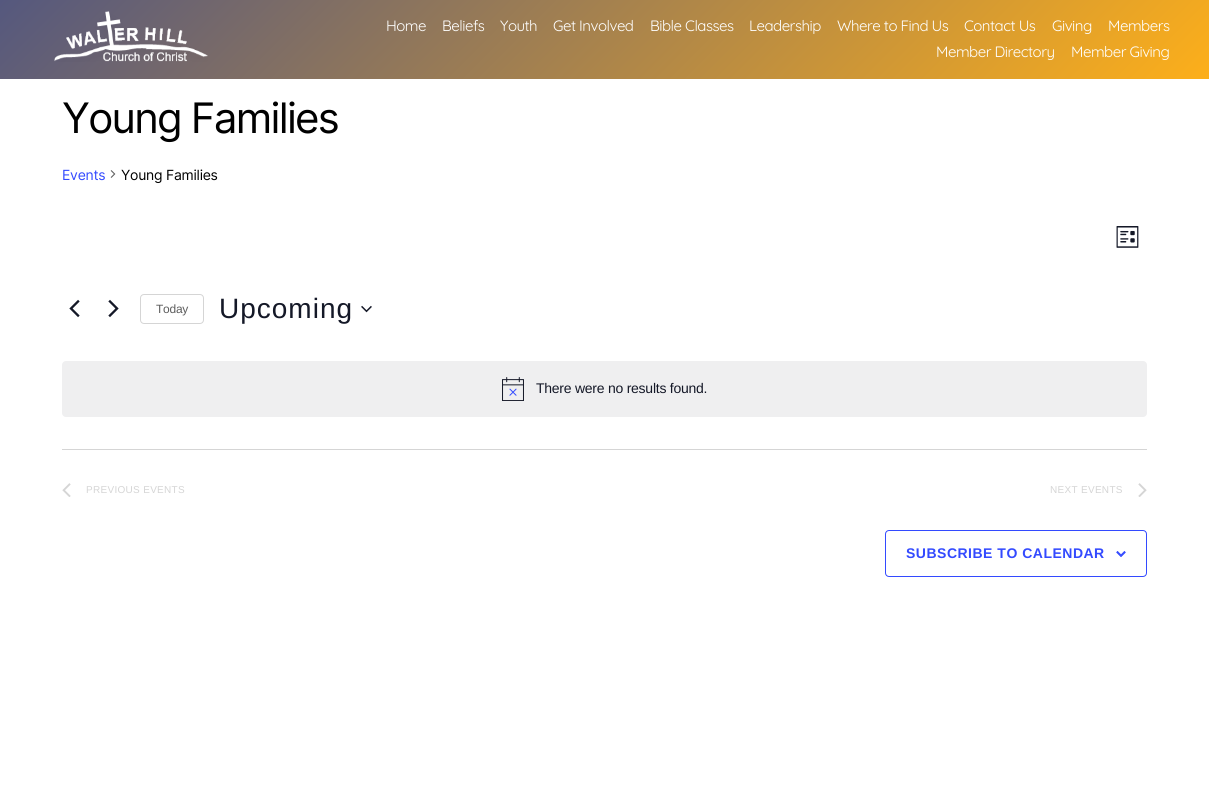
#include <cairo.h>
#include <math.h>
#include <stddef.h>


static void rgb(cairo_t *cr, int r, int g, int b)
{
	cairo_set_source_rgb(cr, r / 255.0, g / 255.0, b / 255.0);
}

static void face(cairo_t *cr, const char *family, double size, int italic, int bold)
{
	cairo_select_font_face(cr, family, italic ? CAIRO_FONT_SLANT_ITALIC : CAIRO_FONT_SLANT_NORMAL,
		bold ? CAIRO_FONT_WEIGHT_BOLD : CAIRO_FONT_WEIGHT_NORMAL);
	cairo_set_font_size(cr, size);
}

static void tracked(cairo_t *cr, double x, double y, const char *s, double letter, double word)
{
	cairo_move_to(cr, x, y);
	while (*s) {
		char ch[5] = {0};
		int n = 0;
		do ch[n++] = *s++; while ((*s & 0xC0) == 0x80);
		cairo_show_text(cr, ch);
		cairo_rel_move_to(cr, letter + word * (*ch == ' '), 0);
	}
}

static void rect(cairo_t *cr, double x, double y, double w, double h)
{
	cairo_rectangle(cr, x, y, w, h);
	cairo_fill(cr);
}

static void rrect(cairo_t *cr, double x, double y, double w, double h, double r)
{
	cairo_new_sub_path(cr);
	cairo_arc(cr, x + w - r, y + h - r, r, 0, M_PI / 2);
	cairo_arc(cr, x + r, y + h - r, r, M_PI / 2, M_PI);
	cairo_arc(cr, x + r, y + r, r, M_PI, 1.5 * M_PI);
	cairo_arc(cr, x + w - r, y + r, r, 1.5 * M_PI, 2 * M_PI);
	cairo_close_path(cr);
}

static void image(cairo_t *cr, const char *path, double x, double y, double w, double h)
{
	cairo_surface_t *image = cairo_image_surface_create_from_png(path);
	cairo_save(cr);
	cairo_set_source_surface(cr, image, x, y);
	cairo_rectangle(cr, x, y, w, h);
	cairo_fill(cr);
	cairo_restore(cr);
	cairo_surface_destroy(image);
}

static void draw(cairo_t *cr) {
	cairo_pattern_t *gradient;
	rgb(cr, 255, 255, 255);
	cairo_paint(cr);
	gradient = cairo_pattern_create_linear(282, -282, 927, 362);
	cairo_pattern_add_color_stop_rgba(gradient, 0, 0.333, 0.345, 0.494, 1);
	cairo_pattern_add_color_stop_rgba(gradient, 1, 0.992, 0.686, 0.102, 1);
	cairo_set_source(cr, gradient);
	cairo_pattern_destroy(gradient);
	rect(cr, 0, 0, 1209, 79);
	image(cr, "image0.png", 54, 11, 154, 51);
	face(cr, "Quicksand", 15, 0, 0);
	rgb(cr, 255, 255, 255);
	tracked(cr, 386, 31, "Home", -0.5, 0);
	tracked(cr, 442, 31, "Beliefs", -0.5, 0);
	tracked(cr, 500, 31, "Youth", -0.5, 0);
	tracked(cr, 553, 31, "Get Involved", -0.5, 0);
	tracked(cr, 650, 31, "Bible Classes", -0.5, 0);
	tracked(cr, 749, 31, "Leadership", -0.5, 0);
	tracked(cr, 837, 31, "Where to Find Us", -0.5, 0);
	tracked(cr, 964, 31, "Contact Us", -0.5, 0);
	tracked(cr, 1052, 31, "Giving", -0.5, 0);
	tracked(cr, 1108, 31, "Members", -0.5, 0);
	tracked(cr, 936, 57, "Member Directory", -0.5, 0);
	tracked(cr, 1071, 57, "Member Giving", -0.5, 0);
	face(cr, "Inter", 42, 0, 0);
	rgb(cr, 0, 0, 0);
	tracked(cr, 62, 133, "Young Families", -1.75, 0);
	face(cr, "Inter", 14, 0, 0);
	rgb(cr, 51, 74, 255);
	tracked(cr, 62, 180, "Events", -0.25, 0);
	image(cr, "image1.png", 110, 170, 6, 8);
	rgb(cr, 0, 0, 0);
	tracked(cr, 121, 180, "Young Families", -0.25, 0);
	image(cr, "image2.png", 1116, 226, 23, 22);
	image(cr, "image3.png", 69, 299, 11, 19);
	image(cr, "image4.png", 108, 299, 11, 19);
	rrect(cr, 140.5, 294.5, 63, 29, 3.5);
	rgb(cr, 213, 213, 213);
	cairo_set_line_width(cr, 1);
	cairo_stroke(cr);
	face(cr, "Liberation Sans", 12, 0, 0);
	rgb(cr, 93, 93, 93);
	tracked(cr, 156, 313, "Today", -0.25, 0);
	face(cr, "Liberation Sans", 28, 0, 0);
	rgb(cr, 20, 24, 39);
	tracked(cr, 219, 318, "Upcoming", 1, 0);
	image(cr, "image5.png", 361, 305, 11, 8);
	rgb(cr, 239, 239, 240);
	rrect(cr, 62, 361, 1085, 56, 4);
	cairo_fill(cr);
	image(cr, "image6.png", 502, 377, 22, 24);
	face(cr, "Liberation Sans", 14, 0, 0);
	rgb(cr, 20, 24, 39);
	tracked(cr, 536, 393, "There were no results found.", -0.25, 0);
	rgb(cr, 213, 213, 213);
	rect(cr, 62, 449, 1085, 1);
	image(cr, "image7.png", 62, 483, 9, 14);
	face(cr, "Liberation Sans", 10, 0, 0);
	tracked(cr, 86, 493, "PREVIOUS EVENTS", 0.3, 0);
	tracked(cr, 1050, 493, "NEXT EVENTS", 0.3, 0);
	image(cr, "image8.png", 1138, 483, 9, 14);
	rrect(cr, 885.5, 530.5, 261, 46, 3.5);
	rgb(cr, 51, 74, 255);
	cairo_stroke(cr);
	face(cr, "Liberation Sans", 14, 0, 1);
	tracked(cr, 906, 558, "SUBSCRIBE TO CALENDAR", 0.5, 0);
	image(cr, "image9.png", 1116, 551, 10, 6);
}

int main(void) {
	cairo_surface_t *surface = cairo_image_surface_create(CAIRO_FORMAT_RGB24, 1209, 787);
	cairo_t *cr = cairo_create(surface);
	cairo_font_options_t *options = cairo_font_options_create();
	cairo_font_options_set_hint_metrics(options, CAIRO_HINT_METRICS_OFF);
	cairo_font_options_set_hint_style(options, CAIRO_HINT_STYLE_NONE);
	cairo_set_font_options(cr, options);
	cairo_set_miter_limit(cr, 4);
	draw(cr);
	cairo_surface_write_to_png(surface, "render.png");
	cairo_font_options_destroy(options);
	cairo_destroy(cr);
	cairo_surface_destroy(surface);
	return 0;
}
